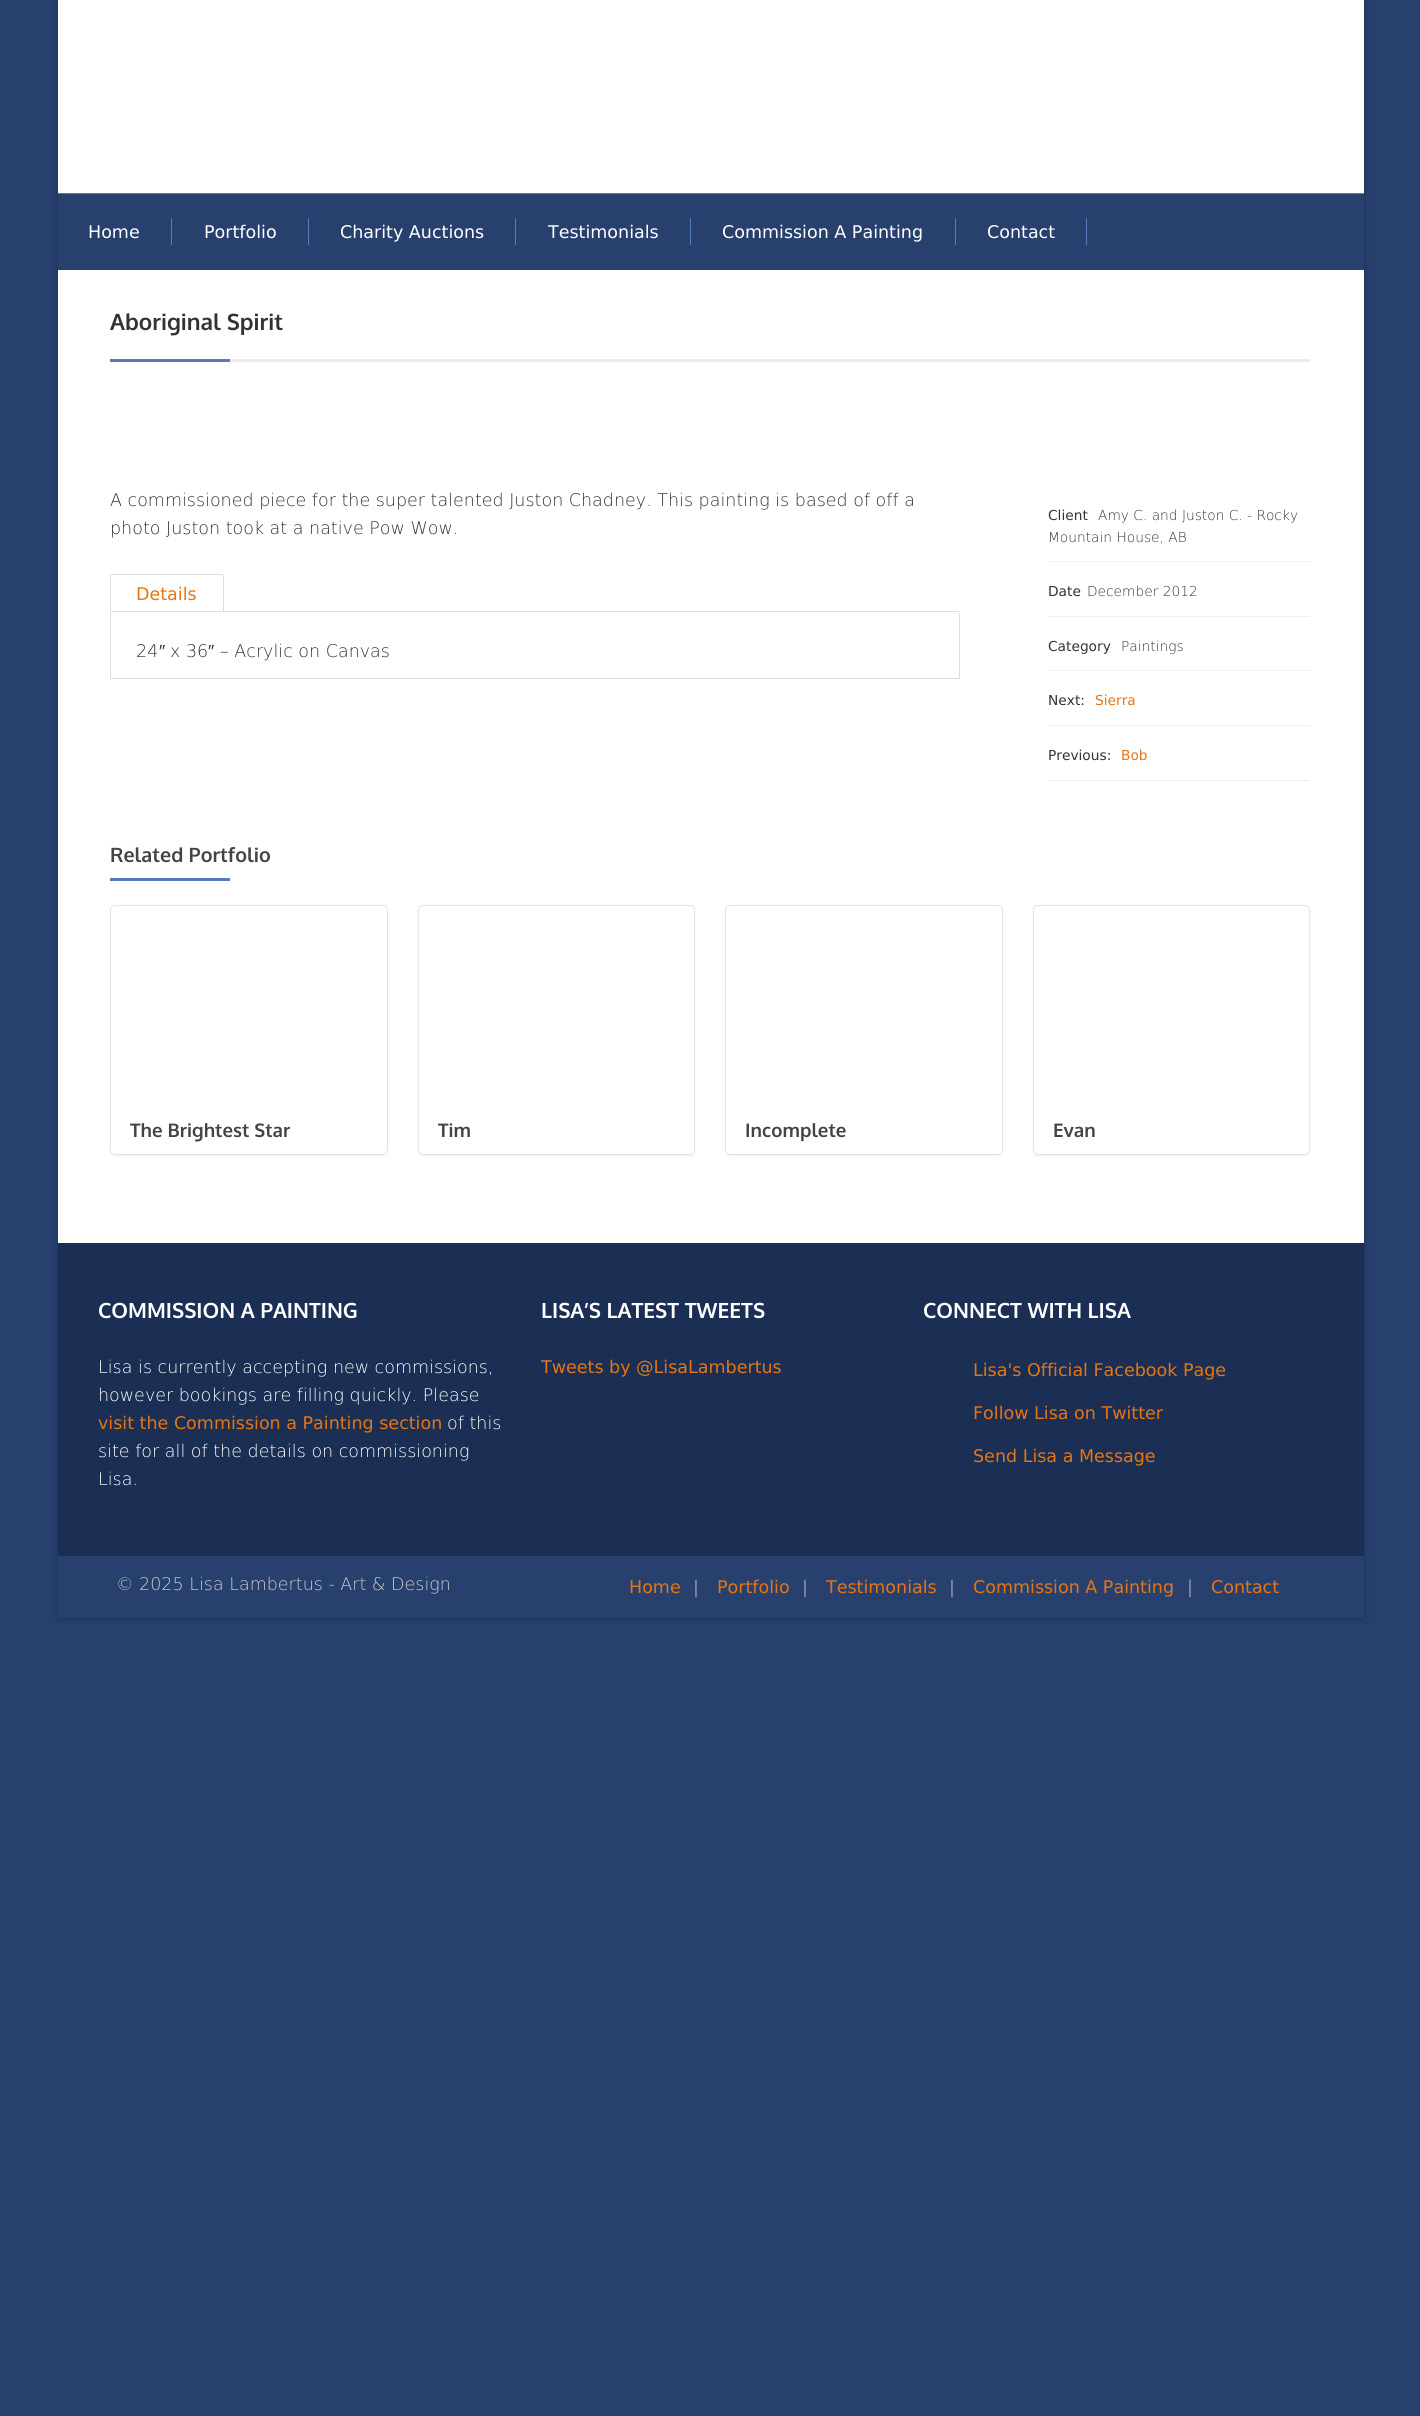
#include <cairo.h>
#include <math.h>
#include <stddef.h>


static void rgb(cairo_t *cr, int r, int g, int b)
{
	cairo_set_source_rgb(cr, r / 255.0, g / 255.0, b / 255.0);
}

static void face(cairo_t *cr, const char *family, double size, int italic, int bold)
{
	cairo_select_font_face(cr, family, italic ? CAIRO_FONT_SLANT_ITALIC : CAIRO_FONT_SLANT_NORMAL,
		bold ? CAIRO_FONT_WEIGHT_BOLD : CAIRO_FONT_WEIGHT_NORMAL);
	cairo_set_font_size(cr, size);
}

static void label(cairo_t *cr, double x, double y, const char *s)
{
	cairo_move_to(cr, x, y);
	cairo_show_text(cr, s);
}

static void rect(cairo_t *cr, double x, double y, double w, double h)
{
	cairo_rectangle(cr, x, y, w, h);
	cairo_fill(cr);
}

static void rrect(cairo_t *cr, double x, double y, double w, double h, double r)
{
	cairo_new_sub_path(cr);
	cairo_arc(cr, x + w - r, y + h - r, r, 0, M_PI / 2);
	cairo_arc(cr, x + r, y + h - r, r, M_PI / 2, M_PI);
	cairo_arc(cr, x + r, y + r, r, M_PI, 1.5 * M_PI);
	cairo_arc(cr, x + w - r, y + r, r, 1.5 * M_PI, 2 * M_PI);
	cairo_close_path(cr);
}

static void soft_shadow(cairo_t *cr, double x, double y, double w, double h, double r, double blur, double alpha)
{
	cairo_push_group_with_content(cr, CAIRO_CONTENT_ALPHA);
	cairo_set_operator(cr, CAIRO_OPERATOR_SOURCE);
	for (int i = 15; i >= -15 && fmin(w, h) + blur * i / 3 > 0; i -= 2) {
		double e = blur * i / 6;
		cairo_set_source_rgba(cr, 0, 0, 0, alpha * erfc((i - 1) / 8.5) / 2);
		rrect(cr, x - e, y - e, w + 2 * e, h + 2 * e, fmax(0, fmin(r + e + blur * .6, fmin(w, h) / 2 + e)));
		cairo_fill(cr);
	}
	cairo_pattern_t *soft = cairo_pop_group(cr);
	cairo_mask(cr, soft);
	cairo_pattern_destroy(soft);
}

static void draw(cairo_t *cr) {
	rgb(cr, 40, 64, 110);
	cairo_paint(cr);
	rgb(cr, 27, 46, 84);
	soft_shadow(cr, 58, 0, 1306, 1618, 0, 3, 1);
	rgb(cr, 255, 255, 255);
	rect(cr, 58, 0, 1306, 1243);
	rgb(cr, 40, 64, 110);
	rect(cr, 58, 194, 1306, 76);
	rgb(cr, 88, 123, 185);
	rect(cr, 58, 193, 1306, 1);
	rect(cr, 171, 218, 1, 27);
	face(cr, "DejaVu Sans", 17.5, 0, 0);
	rgb(cr, 255, 255, 255);
	label(cr, 88, 238, "Home");
	rgb(cr, 88, 123, 185);
	rect(cr, 308, 218, 1, 27);
	rgb(cr, 255, 255, 255);
	label(cr, 204, 238, "Portfolio");
	rgb(cr, 88, 123, 185);
	rect(cr, 515, 218, 1, 27);
	rgb(cr, 255, 255, 255);
	label(cr, 340, 238, "Charity Auctions");
	rgb(cr, 88, 123, 185);
	rect(cr, 690, 218, 1, 27);
	rgb(cr, 255, 255, 255);
	label(cr, 548, 238, "Testimonials");
	rgb(cr, 88, 123, 185);
	rect(cr, 955, 218, 1, 27);
	rgb(cr, 255, 255, 255);
	label(cr, 722, 238, "Commission A Painting");
	rgb(cr, 88, 123, 185);
	rect(cr, 1086, 218, 1, 27);
	rgb(cr, 255, 255, 255);
	label(cr, 987, 238, "Contact");
	rgb(cr, 236, 236, 236);
	rect(cr, 230, 359, 1080, 3);
	face(cr, "Oxygen", 22.5, 0, 1);
	rgb(cr, 51, 51, 51);
	label(cr, 110, 330, "Aboriginal Spirit");
	rgb(cr, 88, 123, 185);
	rect(cr, 110, 359, 120, 3);
	face(cr, "DejaVu Sans ExtraLight", 17.5, 0, 0);
	rgb(cr, 51, 51, 51);
	label(cr, 110, 506, "A commissioned piece for the super talented Juston Chadney. This painting is based of off a");
	label(cr, 110, 534, "photo Juston took at a native Pow Wow.");
	rgb(cr, 221, 221, 221);
	rect(cr, 110, 611, 850, 1);
	rect(cr, 111, 574, 112, 1);
	rect(cr, 223, 575, 1, 36);
	rect(cr, 110, 575, 1, 36);
	face(cr, "DejaVu Sans", 17.5, 0, 0);
	rgb(cr, 229, 117, 20);
	label(cr, 136, 600, "Details");
	rgb(cr, 221, 221, 221);
	rect(cr, 959, 613, 1, 66);
	rect(cr, 110, 678, 850, 1);
	rect(cr, 110, 613, 1, 66);
	face(cr, "DejaVu Sans ExtraLight", 17.5, 0, 0);
	rgb(cr, 51, 51, 51);
	label(cr, 136, 657, "24");
	face(cr, "Liberation Sans", 17.5, 0, 0);
	label(cr, 159, 657, "″");
	face(cr, "DejaVu Sans ExtraLight", 17.5, 0, 0);
	label(cr, 170, 657, "x 36");
	face(cr, "Liberation Sans", 17.5, 0, 0);
	label(cr, 208, 657, "″");
	face(cr, "DejaVu Sans ExtraLight", 17.5, 0, 0);
	label(cr, 220, 657, "– Acrylic on Canvas");
	rgb(cr, 239, 239, 239);
	rect(cr, 1048, 561, 262, 1);
	face(cr, "DejaVu Sans", 13.75, 0, 0);
	rgb(cr, 51, 51, 51);
	label(cr, 1048, 520, "Client");
	face(cr, "DejaVu Sans ExtraLight", 13.75, 0, 0);
	label(cr, 1098, 520, "Amy C. and Juston C. - Rocky");
	label(cr, 1048, 542, "Mountain House, AB");
	rgb(cr, 239, 239, 239);
	rect(cr, 1048, 616, 262, 1);
	face(cr, "DejaVu Sans", 13.75, 0, 0);
	rgb(cr, 51, 51, 51);
	label(cr, 1048, 596, "Date");
	face(cr, "DejaVu Sans ExtraLight", 13.75, 0, 0);
	label(cr, 1087, 596, "December 2012");
	rgb(cr, 239, 239, 239);
	rect(cr, 1048, 670, 262, 1);
	face(cr, "DejaVu Sans", 13.75, 0, 0);
	rgb(cr, 51, 51, 51);
	label(cr, 1048, 651, "Category");
	face(cr, "DejaVu Sans ExtraLight", 13.75, 0, 0);
	label(cr, 1121, 651, "Paintings");
	rgb(cr, 239, 239, 239);
	rect(cr, 1048, 725, 262, 1);
	face(cr, "DejaVu Sans", 13.75, 0, 0);
	rgb(cr, 51, 51, 51);
	label(cr, 1048, 705, "Next:");
	rgb(cr, 229, 117, 20);
	label(cr, 1095, 705, "Sierra");
	rgb(cr, 239, 239, 239);
	rect(cr, 1048, 780, 262, 1);
	rgb(cr, 51, 51, 51);
	label(cr, 1048, 760, "Previous:");
	rgb(cr, 229, 117, 20);
	label(cr, 1121, 760, "Bob");
	face(cr, "Oxygen", 19.75, 0, 1);
	rgb(cr, 68, 68, 68);
	label(cr, 110, 862, "Related Portfolio");
	rgb(cr, 88, 123, 185);
	rect(cr, 110, 878, 120, 3);
	cairo_save(cr);
	cairo_set_fill_rule(cr, CAIRO_FILL_RULE_EVEN_ODD);
	cairo_new_path(cr);
	cairo_move_to(cr, 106, 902);
	cairo_line_to(cr, 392, 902);
	cairo_line_to(cr, 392, 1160);
	cairo_line_to(cr, 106, 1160);
	cairo_close_path(cr);
	cairo_move_to(cr, 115, 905);
	cairo_line_to(cr, 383, 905);
	cairo_curve_to(cr, 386, 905, 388, 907, 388, 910);
	cairo_line_to(cr, 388, 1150);
	cairo_curve_to(cr, 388, 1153, 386, 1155, 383, 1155);
	cairo_line_to(cr, 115, 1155);
	cairo_curve_to(cr, 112, 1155, 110, 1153, 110, 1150);
	cairo_line_to(cr, 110, 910);
	cairo_curve_to(cr, 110, 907, 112, 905, 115, 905);
	cairo_close_path(cr);
	cairo_clip(cr);
	rgb(cr, 180, 180, 180);
	soft_shadow(cr, 110, 906, 278, 250, 5, 1, 0.2);
	cairo_restore(cr);
	rrect(cr, 110.5, 905.5, 277, 249, 4.5);
	rgb(cr, 228, 228, 228);
	cairo_set_line_width(cr, 1);
	cairo_stroke(cr);
	face(cr, "Oxygen", 18.75, 0, 1);
	rgb(cr, 68, 68, 68);
	label(cr, 130, 1137, "The Brightest Star");
	cairo_save(cr);
	cairo_set_fill_rule(cr, CAIRO_FILL_RULE_EVEN_ODD);
	cairo_new_path(cr);
	cairo_move_to(cr, 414, 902);
	cairo_line_to(cr, 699, 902);
	cairo_line_to(cr, 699, 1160);
	cairo_line_to(cr, 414, 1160);
	cairo_close_path(cr);
	cairo_move_to(cr, 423, 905);
	cairo_line_to(cr, 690, 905);
	cairo_curve_to(cr, 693, 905, 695, 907, 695, 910);
	cairo_line_to(cr, 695, 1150);
	cairo_curve_to(cr, 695, 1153, 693, 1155, 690, 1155);
	cairo_line_to(cr, 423, 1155);
	cairo_curve_to(cr, 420, 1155, 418, 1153, 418, 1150);
	cairo_line_to(cr, 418, 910);
	cairo_curve_to(cr, 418, 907, 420, 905, 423, 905);
	cairo_close_path(cr);
	cairo_clip(cr);
	rgb(cr, 180, 180, 180);
	soft_shadow(cr, 418, 906, 277, 250, 5, 1, 0.2);
	cairo_restore(cr);
	rrect(cr, 418.5, 905.5, 276, 249, 4.5);
	rgb(cr, 228, 228, 228);
	cairo_stroke(cr);
	rgb(cr, 68, 68, 68);
	label(cr, 438, 1137, "Tim");
	cairo_save(cr);
	cairo_set_fill_rule(cr, CAIRO_FILL_RULE_EVEN_ODD);
	cairo_new_path(cr);
	cairo_move_to(cr, 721, 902);
	cairo_line_to(cr, 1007, 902);
	cairo_line_to(cr, 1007, 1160);
	cairo_line_to(cr, 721, 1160);
	cairo_close_path(cr);
	cairo_move_to(cr, 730, 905);
	cairo_line_to(cr, 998, 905);
	cairo_curve_to(cr, 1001, 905, 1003, 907, 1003, 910);
	cairo_line_to(cr, 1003, 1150);
	cairo_curve_to(cr, 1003, 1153, 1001, 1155, 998, 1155);
	cairo_line_to(cr, 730, 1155);
	cairo_curve_to(cr, 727, 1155, 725, 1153, 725, 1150);
	cairo_line_to(cr, 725, 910);
	cairo_curve_to(cr, 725, 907, 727, 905, 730, 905);
	cairo_close_path(cr);
	cairo_clip(cr);
	rgb(cr, 180, 180, 180);
	soft_shadow(cr, 725, 906, 278, 250, 5, 1, 0.2);
	cairo_restore(cr);
	rrect(cr, 725.5, 905.5, 277, 249, 4.5);
	rgb(cr, 228, 228, 228);
	cairo_stroke(cr);
	rgb(cr, 68, 68, 68);
	label(cr, 745, 1137, "Incomplete");
	cairo_save(cr);
	cairo_set_fill_rule(cr, CAIRO_FILL_RULE_EVEN_ODD);
	cairo_new_path(cr);
	cairo_move_to(cr, 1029, 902);
	cairo_line_to(cr, 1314, 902);
	cairo_line_to(cr, 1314, 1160);
	cairo_line_to(cr, 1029, 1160);
	cairo_close_path(cr);
	cairo_move_to(cr, 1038, 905);
	cairo_line_to(cr, 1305, 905);
	cairo_curve_to(cr, 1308, 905, 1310, 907, 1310, 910);
	cairo_line_to(cr, 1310, 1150);
	cairo_curve_to(cr, 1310, 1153, 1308, 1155, 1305, 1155);
	cairo_line_to(cr, 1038, 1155);
	cairo_curve_to(cr, 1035, 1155, 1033, 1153, 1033, 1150);
	cairo_line_to(cr, 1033, 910);
	cairo_curve_to(cr, 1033, 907, 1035, 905, 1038, 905);
	cairo_close_path(cr);
	cairo_clip(cr);
	rgb(cr, 180, 180, 180);
	soft_shadow(cr, 1033, 906, 277, 250, 5, 1, 0.2);
	cairo_restore(cr);
	rrect(cr, 1033.5, 905.5, 276, 249, 4.5);
	rgb(cr, 228, 228, 228);
	cairo_stroke(cr);
	rgb(cr, 68, 68, 68);
	label(cr, 1053, 1137, "Evan");
	rgb(cr, 27, 46, 84);
	rect(cr, 58, 1243, 1306, 313);
	face(cr, "Oxygen", 21, 0, 1);
	rgb(cr, 255, 255, 255);
	label(cr, 98, 1318, "COMMISSION A PAINTING");
	face(cr, "DejaVu Sans ExtraLight", 17.5, 0, 0);
	label(cr, 98, 1373, "Lisa is currently accepting new commissions,");
	label(cr, 98, 1401, "however bookings are filling quickly. Please");
	face(cr, "DejaVu Sans", 17.5, 0, 0);
	rgb(cr, 229, 117, 20);
	label(cr, 98, 1429, "visit the Commission a Painting section");
	face(cr, "DejaVu Sans ExtraLight", 17.5, 0, 0);
	rgb(cr, 255, 255, 255);
	label(cr, 447, 1429, "of this");
	label(cr, 98, 1457, "site for all of the details on commissioning");
	label(cr, 98, 1485, "Lisa.");
	face(cr, "Oxygen", 21, 0, 1);
	label(cr, 541, 1318, "LISA’S LATEST TWEETS");
	face(cr, "DejaVu Sans", 17.5, 0, 0);
	rgb(cr, 229, 117, 20);
	label(cr, 541, 1373, "Tweets by @LisaLambertus");
	face(cr, "Oxygen", 21, 0, 1);
	rgb(cr, 255, 255, 255);
	label(cr, 923, 1318, "CONNECT WITH LISA");
	face(cr, "DejaVu Sans", 17.5, 0, 0);
	rgb(cr, 229, 117, 20);
	label(cr, 973, 1376, "Lisa's Official Facebook Page");
	label(cr, 973, 1419, "Follow Lisa on Twitter");
	label(cr, 973, 1462, "Send Lisa a Message");
	rgb(cr, 40, 64, 110);
	rect(cr, 58, 1556, 1306, 62);
	face(cr, "DejaVu Sans ExtraLight", 17.5, 0, 0);
	rgb(cr, 204, 204, 204);
	label(cr, 116, 1590, "© 2025 Lisa Lambertus - Art & Design");
	face(cr, "DejaVu Sans", 17.5, 0, 0);
	rgb(cr, 229, 117, 20);
	label(cr, 629, 1593, "Home");
	face(cr, "DejaVu Sans ExtraLight", 17.5, 0, 0);
	rgb(cr, 221, 221, 221);
	label(cr, 693, 1593, "|");
	face(cr, "DejaVu Sans", 17.5, 0, 0);
	rgb(cr, 229, 117, 20);
	label(cr, 717, 1593, "Portfolio");
	face(cr, "DejaVu Sans ExtraLight", 17.5, 0, 0);
	rgb(cr, 221, 221, 221);
	label(cr, 802, 1593, "|");
	face(cr, "DejaVu Sans", 17.5, 0, 0);
	rgb(cr, 229, 117, 20);
	label(cr, 826, 1593, "Testimonials");
	face(cr, "DejaVu Sans ExtraLight", 17.5, 0, 0);
	rgb(cr, 221, 221, 221);
	label(cr, 949, 1593, "|");
	face(cr, "DejaVu Sans", 17.5, 0, 0);
	rgb(cr, 229, 117, 20);
	label(cr, 973, 1593, "Commission A Painting");
	face(cr, "DejaVu Sans ExtraLight", 17.5, 0, 0);
	rgb(cr, 221, 221, 221);
	label(cr, 1187, 1593, "|");
	face(cr, "DejaVu Sans", 17.5, 0, 0);
	rgb(cr, 229, 117, 20);
	label(cr, 1211, 1593, "Contact");
}

int main(void) {
	cairo_surface_t *surface = cairo_image_surface_create(CAIRO_FORMAT_RGB24, 1420, 2416);
	cairo_t *cr = cairo_create(surface);
	cairo_font_options_t *options = cairo_font_options_create();
	cairo_font_options_set_hint_metrics(options, CAIRO_HINT_METRICS_OFF);
	cairo_font_options_set_hint_style(options, CAIRO_HINT_STYLE_NONE);
	cairo_set_font_options(cr, options);
	cairo_set_miter_limit(cr, 4);
	draw(cr);
	cairo_surface_write_to_png(surface, "render.png");
	cairo_font_options_destroy(options);
	cairo_destroy(cr);
	cairo_surface_destroy(surface);
	return 0;
}
